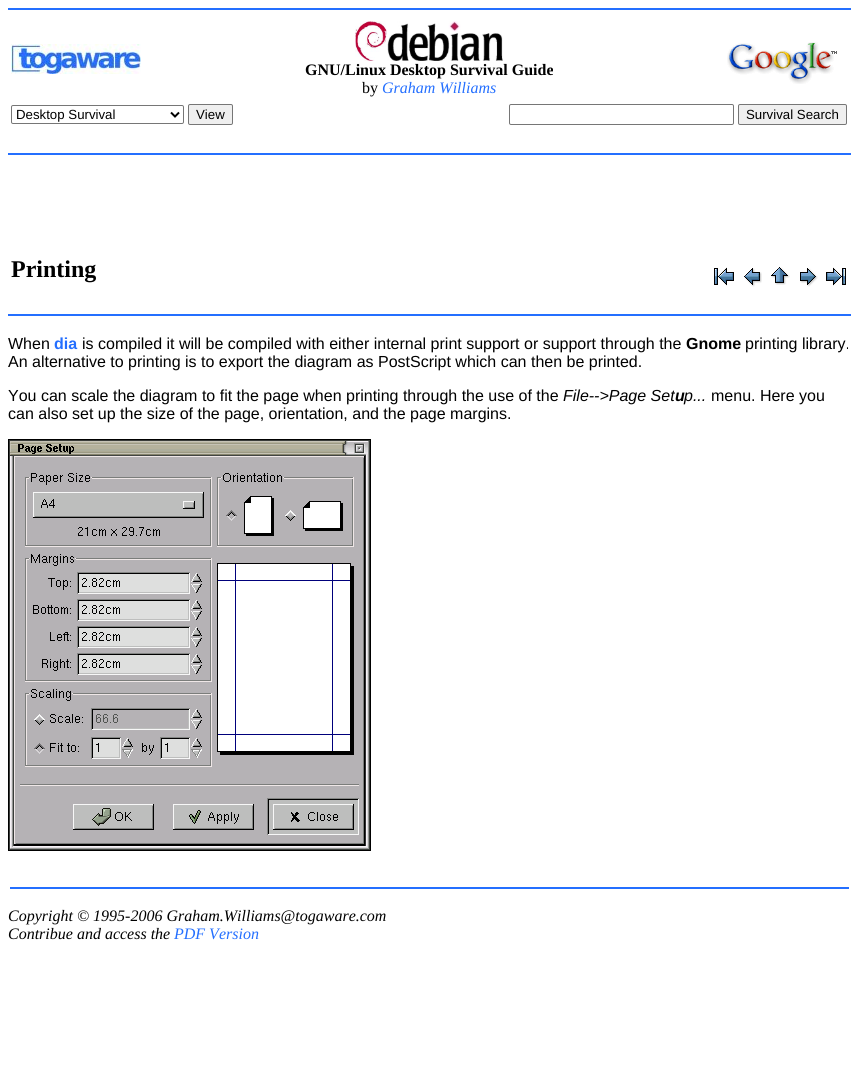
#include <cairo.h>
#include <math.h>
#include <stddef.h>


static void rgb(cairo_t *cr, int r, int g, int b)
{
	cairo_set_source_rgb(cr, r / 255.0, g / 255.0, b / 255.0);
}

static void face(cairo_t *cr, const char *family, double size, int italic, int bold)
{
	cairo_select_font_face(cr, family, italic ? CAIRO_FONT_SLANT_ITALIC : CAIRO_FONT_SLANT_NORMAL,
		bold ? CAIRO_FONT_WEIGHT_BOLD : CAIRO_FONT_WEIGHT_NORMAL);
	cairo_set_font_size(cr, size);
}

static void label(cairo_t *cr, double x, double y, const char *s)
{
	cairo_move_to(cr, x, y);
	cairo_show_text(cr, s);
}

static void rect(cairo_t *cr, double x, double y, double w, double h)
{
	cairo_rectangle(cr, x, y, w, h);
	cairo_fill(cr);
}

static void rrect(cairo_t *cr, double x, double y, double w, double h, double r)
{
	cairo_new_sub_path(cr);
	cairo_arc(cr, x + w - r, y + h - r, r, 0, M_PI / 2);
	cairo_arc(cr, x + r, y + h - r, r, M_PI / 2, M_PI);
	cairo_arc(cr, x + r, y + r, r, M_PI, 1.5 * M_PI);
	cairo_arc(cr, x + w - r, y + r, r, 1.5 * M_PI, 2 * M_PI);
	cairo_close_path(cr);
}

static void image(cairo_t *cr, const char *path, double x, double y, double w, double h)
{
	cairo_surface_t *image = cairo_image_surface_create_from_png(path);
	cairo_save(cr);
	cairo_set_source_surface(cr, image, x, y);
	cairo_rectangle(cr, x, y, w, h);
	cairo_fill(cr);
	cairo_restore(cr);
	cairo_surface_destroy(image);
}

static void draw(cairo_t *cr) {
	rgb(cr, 255, 255, 255);
	cairo_paint(cr);
	rgb(cr, 36, 111, 255);
	rect(cr, 8, 8, 843, 2);
	image(cr, "image0.png", 11, 44, 130, 30);
	image(cr, "image1.png", 727, 42, 110, 42);
	image(cr, "image2.png", 355, 21, 32, 40);
	image(cr, "image3.png", 387, 21, 116, 40);
	face(cr, "Liberation Serif", 16, 0, 1);
	rgb(cr, 0, 0, 0);
	label(cr, 305, 75, "GNU/Linux Desktop Survival Guide");
	face(cr, "Liberation Serif", 16, 0, 0);
	label(cr, 362, 93, "by");
	face(cr, "Liberation Serif", 16, 1, 0);
	rgb(cr, 36, 111, 255);
	label(cr, 382, 93, "Graham Williams");
	rrect(cr, 11.5, 105.5, 172, 18, 1.5);
	rgb(cr, 118, 118, 118);
	cairo_set_line_width(cr, 1);
	cairo_stroke(cr);
	cairo_new_path(cr);
	cairo_move_to(cr, 171, 112.5);
	cairo_line_to(cr, 175, 116.5);
	cairo_line_to(cr, 179, 112.5);
	rgb(cr, 0, 0, 0);
	cairo_set_line_width(cr, 2);
	cairo_stroke(cr);
	face(cr, "Liberation Sans", 13.25, 0, 0);
	label(cr, 16, 119, "Desktop Survival");
	rgb(cr, 239, 239, 239);
	rrect(cr, 188.5, 104.5, 44, 20, 1.5);
	cairo_fill_preserve(cr);
	rgb(cr, 118, 118, 118);
	cairo_set_line_width(cr, 1);
	cairo_stroke(cr);
	rgb(cr, 0, 0, 0);
	label(cr, 196, 119, "View");
	rrect(cr, 509.5, 104.5, 224, 20, 1.5);
	rgb(cr, 118, 118, 118);
	cairo_stroke(cr);
	rgb(cr, 239, 239, 239);
	rrect(cr, 738.5, 104.5, 108, 20, 1.5);
	cairo_fill_preserve(cr);
	rgb(cr, 118, 118, 118);
	cairo_stroke(cr);
	rgb(cr, 0, 0, 0);
	label(cr, 746, 119, "Survival Search");
	rgb(cr, 36, 111, 255);
	rect(cr, 8, 153, 843, 2);
	face(cr, "Liberation Serif", 24, 0, 1);
	rgb(cr, 0, 0, 0);
	label(cr, 11, 277, "Printing");
	image(cr, "image4.png", 714, 267, 20, 19);
	image(cr, "image5.png", 744, 268, 18, 19);
	image(cr, "image6.png", 771, 267, 19, 18);
	image(cr, "image7.png", 800, 268, 18, 19);
	image(cr, "image8.png", 826, 267, 20, 19);
	rgb(cr, 36, 111, 255);
	rect(cr, 8, 314, 843, 2);
	face(cr, "Liberation Sans", 16, 0, 0);
	rgb(cr, 0, 0, 0);
	label(cr, 8, 349, "When");
	face(cr, "Liberation Sans", 16, 0, 1);
	rgb(cr, 36, 111, 255);
	label(cr, 54, 349, "dia");
	face(cr, "Liberation Sans", 16, 0, 0);
	rgb(cr, 0, 0, 0);
	label(cr, 82, 349, "is compiled it will be compiled with either internal print support or support through the");
	face(cr, "Liberation Sans", 16, 0, 1);
	label(cr, 686, 349, "Gnome");
	face(cr, "Liberation Sans", 16, 0, 0);
	label(cr, 745, 349, "printing library.");
	label(cr, 8, 367, "An alternative to printing is to export the diagram as PostScript which can then be printed.");
	label(cr, 8, 401, "You can scale the diagram to fit the page when printing through the use of the");
	face(cr, "Liberation Sans", 16, 1, 0);
	label(cr, 563, 401, "File-->Page Set");
	face(cr, "Liberation Sans", 16, 1, 1);
	label(cr, 675, 401, "u");
	face(cr, "Liberation Sans", 16, 1, 0);
	label(cr, 684, 401, "p...");
	face(cr, "Liberation Sans", 16, 0, 0);
	label(cr, 711, 401, "menu. Here you");
	label(cr, 8, 419, "can also set up the size of the page, orientation, and the page margins.");
	image(cr, "image9.png", 8, 439, 363, 412);
	rgb(cr, 36, 111, 255);
	rect(cr, 10, 887, 839, 2);
	face(cr, "Liberation Serif", 16, 1, 0);
	rgb(cr, 0, 0, 0);
	label(cr, 8, 921, "Copyright © 1995-2006 Graham.Williams@togaware.com");
	label(cr, 8, 939, "Contribue and access the");
	rgb(cr, 36, 111, 255);
	label(cr, 174, 939, "PDF Version");
}

int main(void) {
	cairo_surface_t *surface = cairo_image_surface_create(CAIRO_FORMAT_RGB24, 859, 1079);
	cairo_t *cr = cairo_create(surface);
	cairo_font_options_t *options = cairo_font_options_create();
	cairo_font_options_set_hint_metrics(options, CAIRO_HINT_METRICS_OFF);
	cairo_font_options_set_hint_style(options, CAIRO_HINT_STYLE_NONE);
	cairo_set_font_options(cr, options);
	cairo_set_miter_limit(cr, 4);
	draw(cr);
	cairo_surface_write_to_png(surface, "render.png");
	cairo_font_options_destroy(options);
	cairo_destroy(cr);
	cairo_surface_destroy(surface);
	return 0;
}
